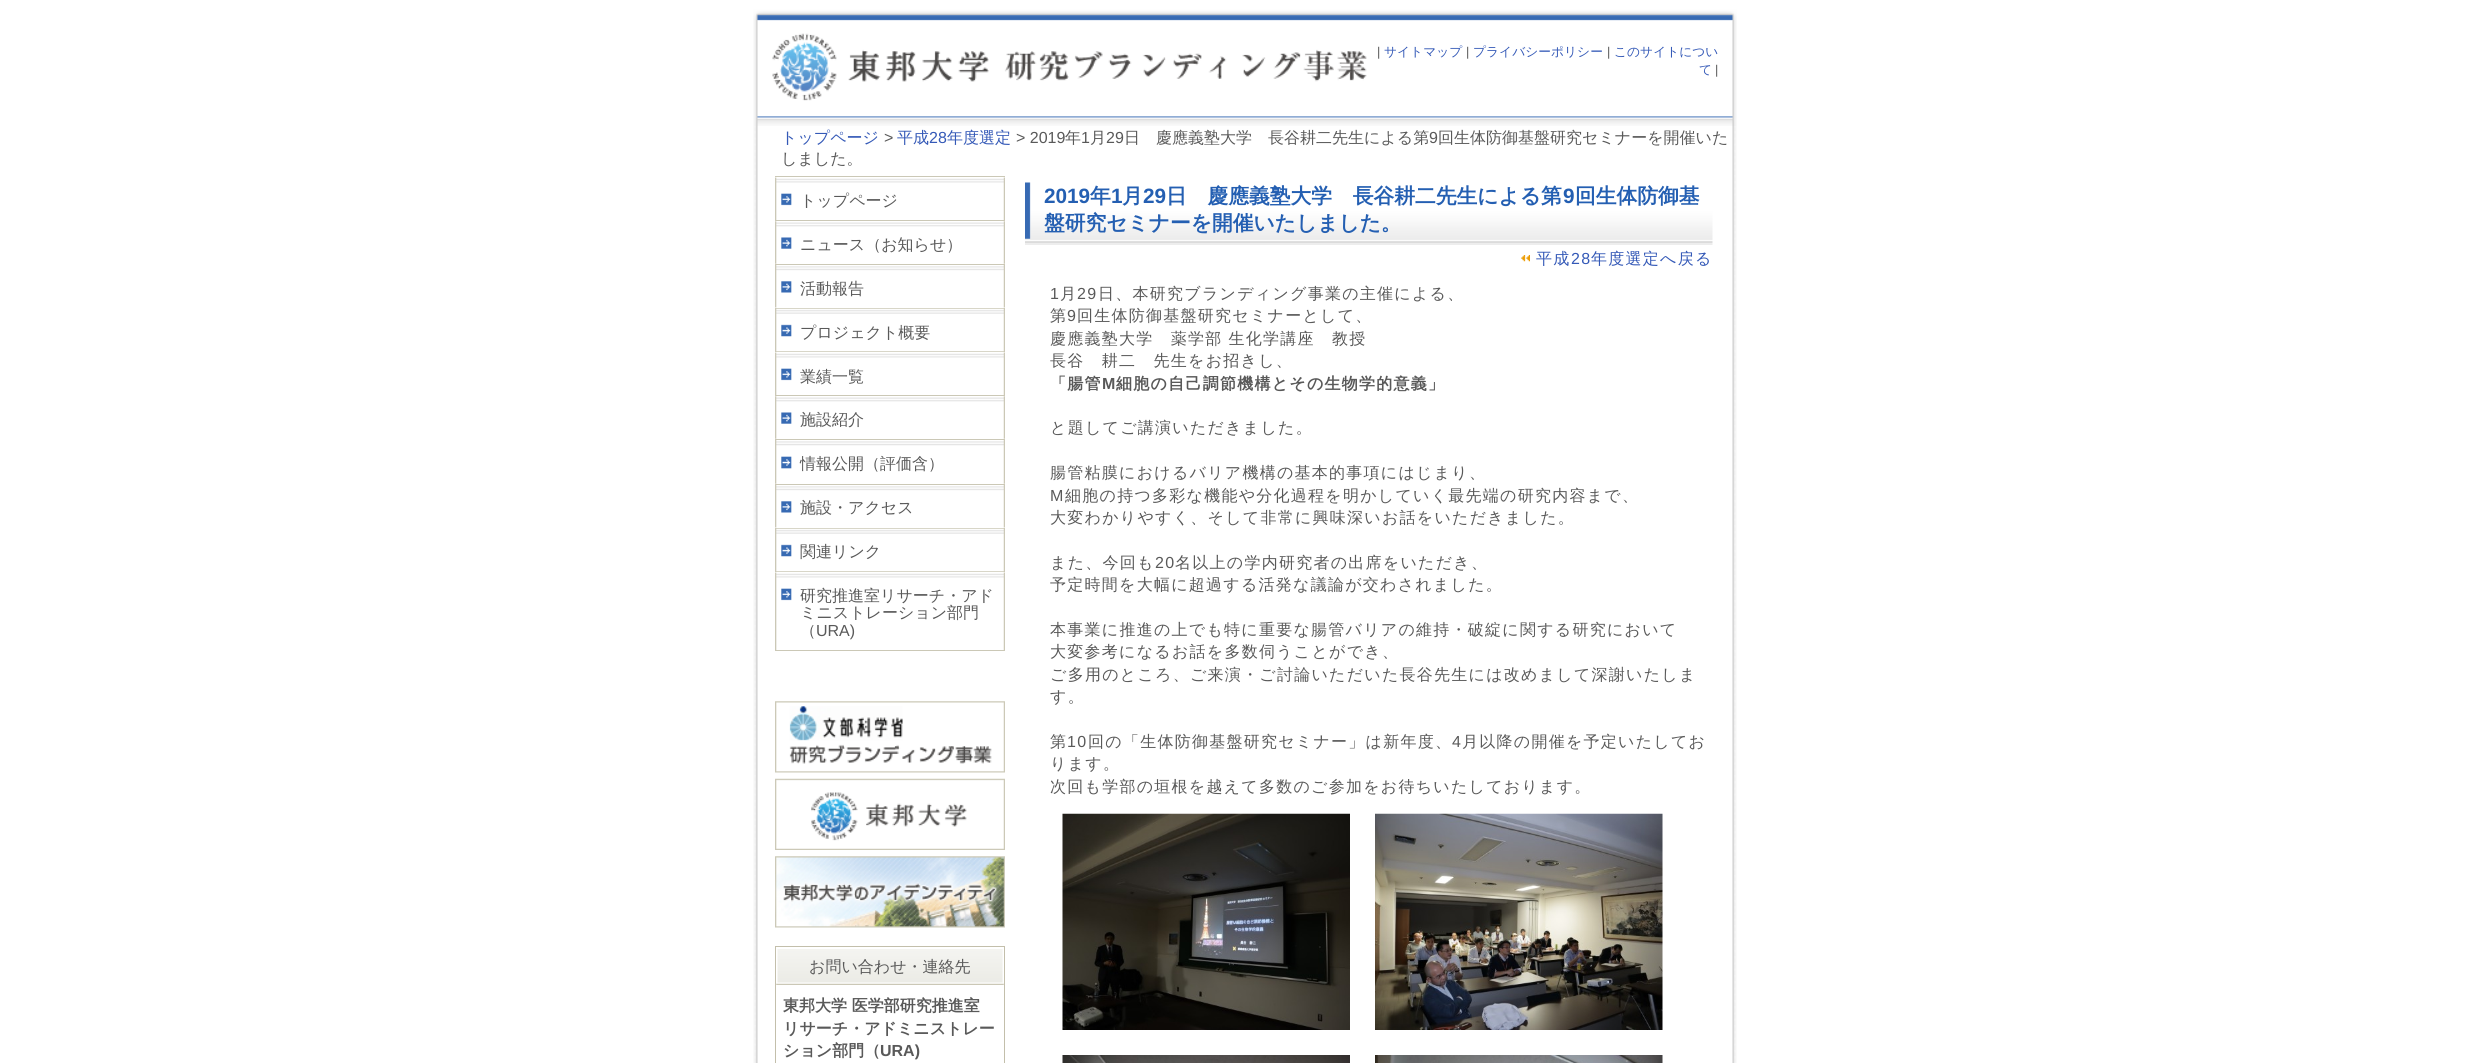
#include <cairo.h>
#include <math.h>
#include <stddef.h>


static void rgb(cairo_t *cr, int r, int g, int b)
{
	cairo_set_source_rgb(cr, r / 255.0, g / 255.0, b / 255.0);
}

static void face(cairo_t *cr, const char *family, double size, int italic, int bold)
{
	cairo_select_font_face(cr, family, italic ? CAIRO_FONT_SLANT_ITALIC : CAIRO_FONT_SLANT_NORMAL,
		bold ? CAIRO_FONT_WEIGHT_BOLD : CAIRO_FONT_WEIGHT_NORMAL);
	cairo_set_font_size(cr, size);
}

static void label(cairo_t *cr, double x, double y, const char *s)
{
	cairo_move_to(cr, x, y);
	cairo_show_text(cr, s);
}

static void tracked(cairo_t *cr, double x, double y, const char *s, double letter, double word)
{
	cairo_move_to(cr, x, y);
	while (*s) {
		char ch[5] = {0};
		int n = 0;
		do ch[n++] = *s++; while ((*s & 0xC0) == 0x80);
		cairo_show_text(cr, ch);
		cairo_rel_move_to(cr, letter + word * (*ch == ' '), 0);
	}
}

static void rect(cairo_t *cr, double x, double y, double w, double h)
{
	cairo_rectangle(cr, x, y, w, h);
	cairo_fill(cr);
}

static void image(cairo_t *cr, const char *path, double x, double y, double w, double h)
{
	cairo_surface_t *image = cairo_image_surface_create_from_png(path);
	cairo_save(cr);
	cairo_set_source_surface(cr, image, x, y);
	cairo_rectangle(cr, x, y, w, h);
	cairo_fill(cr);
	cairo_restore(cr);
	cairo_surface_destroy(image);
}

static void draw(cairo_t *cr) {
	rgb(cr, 255, 255, 255);
	cairo_paint(cr);
	image(cr, "image0.png", 753, 126, 984, 937);
	image(cr, "image1.png", 753, 0, 984, 126);
	image(cr, "image2.png", 772, 33, 595, 68);
	face(cr, "Liberation Sans", 12.75, 0, 0);
	rgb(cr, 89, 89, 89);
	label(cr, 1377, 56, "|");
	face(cr, "WenQuanYi Zen Hei Medium", 12.75, 0, 0);
	rgb(cr, 52, 89, 183);
	label(cr, 1384, 56, "サイトマップ");
	face(cr, "Liberation Sans", 12.75, 0, 0);
	rgb(cr, 89, 89, 89);
	label(cr, 1466, 56, "|");
	face(cr, "WenQuanYi Zen Hei Medium", 12.75, 0, 0);
	rgb(cr, 52, 89, 183);
	label(cr, 1473, 56, "プライバシーポリシー");
	face(cr, "Liberation Sans", 12.75, 0, 0);
	rgb(cr, 89, 89, 89);
	label(cr, 1607, 56, "|");
	face(cr, "WenQuanYi Zen Hei Medium", 12.75, 0, 0);
	rgb(cr, 52, 89, 183);
	label(cr, 1614, 56, "このサイトについ");
	label(cr, 1699, 74, "て");
	face(cr, "Liberation Sans", 12.75, 0, 0);
	rgb(cr, 89, 89, 89);
	label(cr, 1715, 74, "|");
	face(cr, "WenQuanYi Zen Hei Medium", 16, 0, 0);
	rgb(cr, 52, 89, 183);
	label(cr, 781, 143, "トップページ");
	face(cr, "Liberation Sans", 16, 0, 0);
	rgb(cr, 89, 89, 89);
	label(cr, 884, 143, ">");
	face(cr, "WenQuanYi Zen Hei Medium", 16, 0, 0);
	rgb(cr, 52, 89, 183);
	label(cr, 897, 143, "平成");
	face(cr, "Liberation Sans", 16, 0, 0);
	label(cr, 929, 143, "28");
	face(cr, "WenQuanYi Zen Hei Medium", 16, 0, 0);
	label(cr, 947, 143, "年度選定");
	face(cr, "Liberation Sans", 16, 0, 0);
	rgb(cr, 89, 89, 89);
	label(cr, 1016, 143, "> 2019");
	face(cr, "WenQuanYi Zen Hei Medium", 16, 0, 0);
	label(cr, 1065, 143, "年");
	face(cr, "Liberation Sans", 16, 0, 0);
	label(cr, 1081, 143, "1");
	face(cr, "WenQuanYi Zen Hei Medium", 16, 0, 0);
	label(cr, 1090, 143, "月");
	face(cr, "Liberation Sans", 16, 0, 0);
	label(cr, 1106, 143, "29");
	face(cr, "WenQuanYi Zen Hei Medium", 16, 0, 0);
	label(cr, 1124, 143, "日　慶應義塾大学　長谷耕二先生による第");
	face(cr, "Liberation Sans", 16, 0, 0);
	label(cr, 1429, 143, "9");
	face(cr, "WenQuanYi Zen Hei Medium", 16, 0, 0);
	label(cr, 1438, 143, "回生体防御基盤研究セミナーを開催いた");
	label(cr, 781, 164, "しました。");
	rgb(cr, 203, 200, 182);
	rect(cr, 775, 176, 230, 1);
	rect(cr, 775, 220, 230, 1);
	image(cr, "image3.png", 775, 177, 230, 43);
	rgb(cr, 89, 89, 89);
	label(cr, 800, 206, "トップページ");
	rgb(cr, 203, 200, 182);
	rect(cr, 775, 264, 230, 1);
	image(cr, "image4.png", 775, 221, 230, 43);
	rgb(cr, 89, 89, 89);
	label(cr, 800, 250, "ニュース（お知らせ）");
	rgb(cr, 203, 200, 182);
	rect(cr, 775, 308, 230, 1);
	image(cr, "image5.png", 775, 265, 230, 43);
	rgb(cr, 89, 89, 89);
	label(cr, 800, 294, "活動報告");
	rgb(cr, 203, 200, 182);
	rect(cr, 775, 351, 230, 1);
	image(cr, "image6.png", 775, 308, 230, 44);
	rgb(cr, 89, 89, 89);
	label(cr, 800, 338, "プロジェクト概要");
	rgb(cr, 203, 200, 182);
	rect(cr, 775, 395, 230, 1);
	image(cr, "image3.png", 775, 352, 230, 43);
	rgb(cr, 89, 89, 89);
	label(cr, 800, 382, "業績一覧");
	rgb(cr, 203, 200, 182);
	rect(cr, 775, 439, 230, 1);
	image(cr, "image4.png", 775, 396, 230, 43);
	rgb(cr, 89, 89, 89);
	label(cr, 800, 425, "施設紹介");
	rgb(cr, 203, 200, 182);
	rect(cr, 775, 484, 230, 1);
	image(cr, "image7.png", 775, 440, 230, 44);
	rgb(cr, 89, 89, 89);
	label(cr, 800, 469, "情報公開（評価含）");
	rgb(cr, 203, 200, 182);
	rect(cr, 775, 528, 230, 1);
	image(cr, "image5.png", 775, 485, 230, 43);
	rgb(cr, 89, 89, 89);
	label(cr, 800, 513, "施設・アクセス");
	rgb(cr, 203, 200, 182);
	rect(cr, 775, 571, 230, 1);
	image(cr, "image6.png", 775, 528, 230, 44);
	rgb(cr, 89, 89, 89);
	label(cr, 800, 557, "関連リンク");
	rgb(cr, 203, 200, 182);
	rect(cr, 775, 650, 230, 1);
	image(cr, "image8.png", 775, 572, 230, 78);
	rgb(cr, 89, 89, 89);
	label(cr, 800, 601, "研究推進室リサーチ・アド");
	label(cr, 800, 618, "ミニストレーション部門");
	label(cr, 800, 636, "（");
	face(cr, "Liberation Sans", 16, 0, 0);
	label(cr, 816, 636, "URA)");
	image(cr, "image9.png", 775, 701, 230, 72);
	image(cr, "image10.png", 775, 778, 230, 72);
	image(cr, "image11.png", 775, 856, 230, 72);
	cairo_rectangle(cr, 775.5, 946.5, 229, 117);
	rgb(cr, 195, 191, 171);
	cairo_set_line_width(cr, 1);
	cairo_stroke(cr);
	image(cr, "image12.png", 776, 949, 228, 36);
	face(cr, "WenQuanYi Zen Hei Medium", 16, 0, 0);
	rgb(cr, 89, 89, 89);
	label(cr, 809, 972, "お問い合わせ・連絡先");
	face(cr, "WenQuanYi Zen Hei", 16, 0, 1);
	label(cr, 783, 1011, "東邦大学 医学部研究推進室");
	label(cr, 783, 1034, "リサーチ・アドミニストレー");
	label(cr, 783, 1056, "ション部門（");
	face(cr, "Liberation Sans", 16, 0, 1);
	label(cr, 880, 1056, "URA)");
	image(cr, "image13.png", 1025, 182, 688, 63);
	face(cr, "Liberation Sans", 20.75, 0, 1);
	rgb(cr, 36, 95, 178);
	label(cr, 1044, 203, "2019");
	face(cr, "WenQuanYi Zen Hei", 20.75, 0, 1);
	label(cr, 1090, 203, "年");
	face(cr, "Liberation Sans", 20.75, 0, 1);
	label(cr, 1111, 203, "1");
	face(cr, "WenQuanYi Zen Hei", 20.75, 0, 1);
	label(cr, 1122, 203, "月");
	face(cr, "Liberation Sans", 20.75, 0, 1);
	label(cr, 1143, 203, "29");
	face(cr, "WenQuanYi Zen Hei", 20.75, 0, 1);
	label(cr, 1166, 203, "日　慶應義塾大学　長谷耕二先生による第");
	face(cr, "Liberation Sans", 20.75, 0, 1);
	label(cr, 1563, 203, "9");
	face(cr, "WenQuanYi Zen Hei", 20.75, 0, 1);
	label(cr, 1575, 203, "回生体防御基");
	label(cr, 1044, 230, "盤研究セミナーを開催いたしました。");
	image(cr, "image14.png", 1521, 255, 9, 7);
	face(cr, "WenQuanYi Zen Hei Medium", 16, 0, 0);
	rgb(cr, 52, 89, 183);
	tracked(cr, 1536, 264, "平成", 1.25, 0);
	face(cr, "Liberation Sans", 16, 0, 0);
	tracked(cr, 1571, 264, "28", 1.25, 0);
	face(cr, "WenQuanYi Zen Hei Medium", 16, 0, 0);
	tracked(cr, 1591, 264, "年度選定へ戻る", 1.25, 0);
	face(cr, "Liberation Sans", 16, 0, 0);
	rgb(cr, 89, 89, 89);
	tracked(cr, 1050, 299, "1", 1.25, 0);
	face(cr, "WenQuanYi Zen Hei Medium", 16, 0, 0);
	tracked(cr, 1060, 299, "月", 1.25, 0);
	face(cr, "Liberation Sans", 16, 0, 0);
	tracked(cr, 1077, 299, "29", 1.25, 0);
	face(cr, "WenQuanYi Zen Hei Medium", 16, 0, 0);
	tracked(cr, 1098, 299, "日、本研究ブランディング事業の主催による、", 1.25, 0);
	tracked(cr, 1050, 321, "第", 1.25, 0);
	face(cr, "Liberation Sans", 16, 0, 0);
	tracked(cr, 1067, 321, "9", 1.25, 0);
	face(cr, "WenQuanYi Zen Hei Medium", 16, 0, 0);
	tracked(cr, 1077, 321, "回生体防御基盤研究セミナーとして、", 1.25, 0);
	tracked(cr, 1050, 344, "慶應義塾大学　薬学部 生化学講座　教授", 1.25, 0);
	tracked(cr, 1050, 366, "長谷　耕二　先生をお招きし、", 1.25, 0);
	face(cr, "WenQuanYi Zen Hei", 16, 0, 1);
	tracked(cr, 1050, 389, "「腸管", 1.25, 0);
	face(cr, "Liberation Sans", 16, 0, 1);
	tracked(cr, 1102, 389, "M", 1.25, 0);
	face(cr, "WenQuanYi Zen Hei", 16, 0, 1);
	tracked(cr, 1116, 389, "細胞の自己調節機構とその生物学的意義」", 1.25, 0);
	face(cr, "WenQuanYi Zen Hei Medium", 16, 0, 0);
	tracked(cr, 1050, 433, "と題してご講演いただきました。", 1.25, 0);
	tracked(cr, 1050, 478, "腸管粘膜におけるバリア機構の基本的事項にはじまり、", 1.25, 0);
	face(cr, "Liberation Sans", 16, 0, 0);
	tracked(cr, 1050, 501, "M", 1.25, 0);
	face(cr, "WenQuanYi Zen Hei Medium", 16, 0, 0);
	tracked(cr, 1065, 501, "細胞の持つ多彩な機能や分化過程を明かしていく最先端の研究内容まで、", 1.25, 0);
	tracked(cr, 1050, 523, "大変わかりやすく、そして非常に興味深いお話をいただきました。", 1.25, 0);
	tracked(cr, 1050, 568, "また、今回も", 1.25, 0);
	face(cr, "Liberation Sans", 16, 0, 0);
	tracked(cr, 1155, 568, "20", 1.25, 0);
	face(cr, "WenQuanYi Zen Hei Medium", 16, 0, 0);
	tracked(cr, 1175, 568, "名以上の学内研究者の出席をいただき、", 1.25, 0);
	tracked(cr, 1050, 590, "予定時間を大幅に超過する活発な議論が交わされました。", 1.25, 0);
	tracked(cr, 1050, 635, "本事業に推進の上でも特に重要な腸管バリアの維持・破綻に関する研究において", 1.25, 0);
	tracked(cr, 1050, 657, "大変参考になるお話を多数伺うことができ、", 1.25, 0);
	tracked(cr, 1050, 680, "ご多用のところ、ご来演・ご討論いただいた長谷先生には改めまして深謝いたしま", 1.25, 0);
	tracked(cr, 1050, 702, "す。", 1.25, 0);
	tracked(cr, 1050, 747, "第", 1.25, 0);
	face(cr, "Liberation Sans", 16, 0, 0);
	tracked(cr, 1067, 747, "10", 1.25, 0);
	face(cr, "WenQuanYi Zen Hei Medium", 16, 0, 0);
	tracked(cr, 1088, 747, "回の「生体防御基盤研究セミナー」は新年度、", 1.25, 0);
	face(cr, "Liberation Sans", 16, 0, 0);
	tracked(cr, 1452, 747, "4", 1.25, 0);
	face(cr, "WenQuanYi Zen Hei Medium", 16, 0, 0);
	tracked(cr, 1462, 747, "月以降の開催を予定いたしてお", 1.25, 0);
	tracked(cr, 1050, 769, "ります。", 1.25, 0);
	tracked(cr, 1050, 792, "次回も学部の垣根を越えて多数のご参加をお待ちいたしております。", 1.25, 0);
	image(cr, "image15.png", 1062, 813, 288, 217);
	image(cr, "image16.png", 1375, 813, 288, 217);
	image(cr, "image17.png", 1062, 1055, 288, 8);
	image(cr, "image18.png", 1375, 1055, 288, 8);
}

int main(void) {
	cairo_surface_t *surface = cairo_image_surface_create(CAIRO_FORMAT_RGB24, 2490, 1063);
	cairo_t *cr = cairo_create(surface);
	cairo_font_options_t *options = cairo_font_options_create();
	cairo_font_options_set_hint_metrics(options, CAIRO_HINT_METRICS_OFF);
	cairo_font_options_set_hint_style(options, CAIRO_HINT_STYLE_NONE);
	cairo_set_font_options(cr, options);
	cairo_set_miter_limit(cr, 4);
	draw(cr);
	cairo_surface_write_to_png(surface, "render.png");
	cairo_font_options_destroy(options);
	cairo_destroy(cr);
	cairo_surface_destroy(surface);
	return 0;
}
